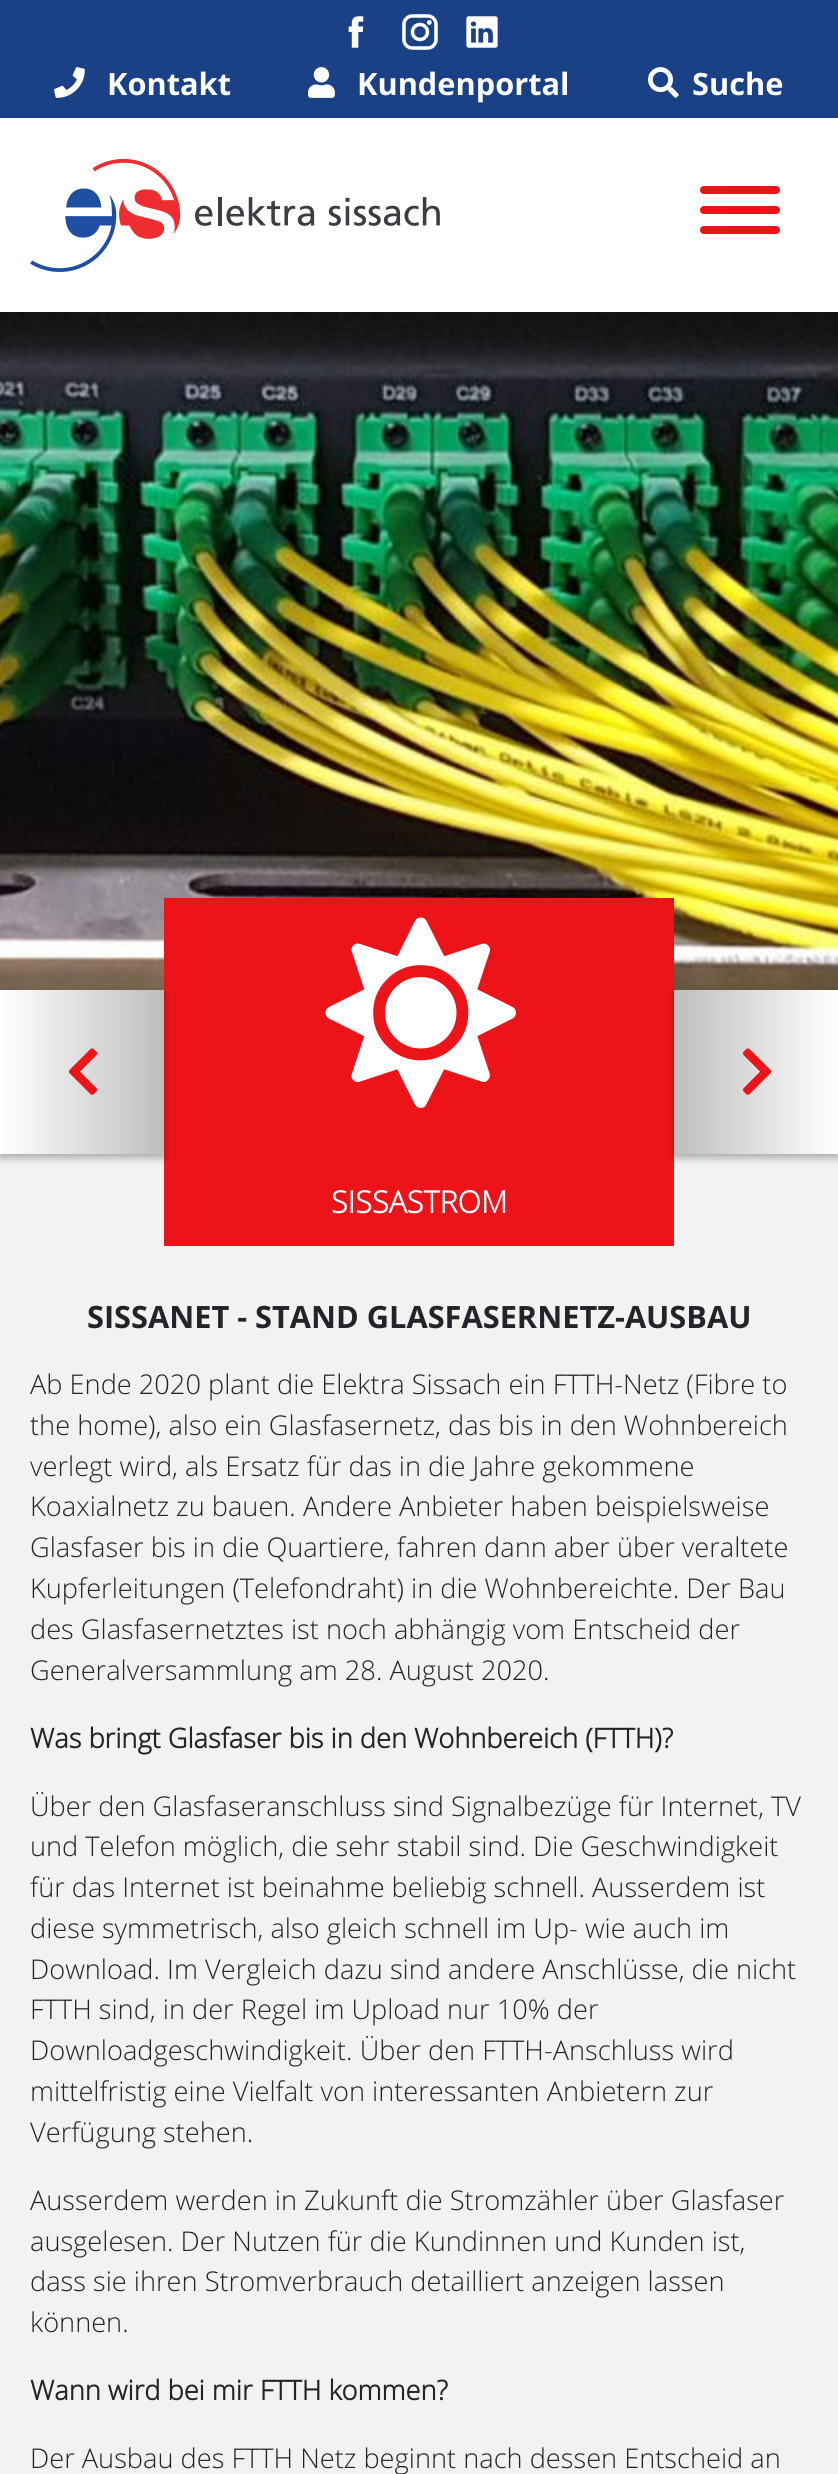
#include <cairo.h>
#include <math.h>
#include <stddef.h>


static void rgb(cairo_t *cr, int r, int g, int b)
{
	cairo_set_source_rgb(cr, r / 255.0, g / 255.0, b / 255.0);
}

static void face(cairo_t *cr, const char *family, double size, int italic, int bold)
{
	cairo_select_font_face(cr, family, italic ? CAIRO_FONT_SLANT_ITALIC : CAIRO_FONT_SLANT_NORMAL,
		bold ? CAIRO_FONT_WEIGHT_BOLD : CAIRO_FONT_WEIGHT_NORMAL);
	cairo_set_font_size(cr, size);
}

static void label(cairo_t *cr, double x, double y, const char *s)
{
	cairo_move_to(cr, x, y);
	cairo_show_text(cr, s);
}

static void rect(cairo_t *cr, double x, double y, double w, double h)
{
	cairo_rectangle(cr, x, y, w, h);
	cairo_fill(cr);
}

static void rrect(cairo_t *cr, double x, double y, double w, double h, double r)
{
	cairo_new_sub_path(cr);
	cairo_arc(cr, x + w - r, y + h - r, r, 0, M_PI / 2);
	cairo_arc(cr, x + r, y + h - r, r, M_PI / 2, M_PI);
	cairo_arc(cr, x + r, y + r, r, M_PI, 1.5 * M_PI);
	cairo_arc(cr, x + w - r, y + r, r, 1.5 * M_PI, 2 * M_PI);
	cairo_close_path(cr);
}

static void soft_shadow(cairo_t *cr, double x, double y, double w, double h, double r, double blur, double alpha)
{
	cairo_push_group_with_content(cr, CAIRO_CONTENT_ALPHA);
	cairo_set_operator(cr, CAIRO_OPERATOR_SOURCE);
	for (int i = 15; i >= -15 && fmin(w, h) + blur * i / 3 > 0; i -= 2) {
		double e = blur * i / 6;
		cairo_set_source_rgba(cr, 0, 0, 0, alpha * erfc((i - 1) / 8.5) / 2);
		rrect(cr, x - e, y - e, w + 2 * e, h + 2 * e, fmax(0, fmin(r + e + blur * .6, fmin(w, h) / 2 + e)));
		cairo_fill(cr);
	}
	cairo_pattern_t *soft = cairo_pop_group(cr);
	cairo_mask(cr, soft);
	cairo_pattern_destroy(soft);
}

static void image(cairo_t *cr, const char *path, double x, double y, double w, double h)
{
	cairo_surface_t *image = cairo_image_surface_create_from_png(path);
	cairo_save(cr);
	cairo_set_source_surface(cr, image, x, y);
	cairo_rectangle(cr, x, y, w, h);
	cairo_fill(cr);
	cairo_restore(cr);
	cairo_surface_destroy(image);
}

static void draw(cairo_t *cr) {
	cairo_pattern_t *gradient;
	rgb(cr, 255, 255, 255);
	cairo_paint(cr);
	rgb(cr, 26, 65, 134);
	rect(cr, 0, 0, 838, 118);
	image(cr, "image0.png", 348, 16, 16, 32);
	image(cr, "image1.png", 402, 14, 36, 36);
	image(cr, "image2.png", 466, 16, 32, 32);
	image(cr, "image3.png", 54, 67, 31, 31);
	face(cr, "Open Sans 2", 30.75, 0, 1);
	rgb(cr, 255, 255, 255);
	label(cr, 107, 95, "Kontakt");
	image(cr, "image4.png", 308, 67, 27, 31);
	label(cr, 357, 95, "Kundenportal");
	image(cr, "image5.png", 648, 67, 31, 31);
	label(cr, 692, 95, "Suche");
	image(cr, "image6.png", 30, 158, 410, 114);
	rgb(cr, 237, 20, 25);
	rrect(cr, 700, 186, 80, 8, 4);
	cairo_fill(cr);
	rrect(cr, 700, 206, 80, 8, 4);
	cairo_fill(cr);
	rrect(cr, 700, 226, 80, 8, 4);
	cairo_fill(cr);
	image(cr, "image7.png", 0, 312, 838, 678);
	rgb(cr, 242, 242, 242);
	rect(cr, 0, 1154, 838, 1320);
	rgb(cr, 237, 20, 25);
	rect(cr, 164, 898, 510, 348);
	rgb(cr, 0, 0, 0);
	soft_shadow(cr, 0, 994, 164, 164, 0, 4, 0.3);
	gradient = cairo_pattern_create_linear(0, 1072, 164, 1072);
	cairo_pattern_add_color_stop_rgba(gradient, 0, 1, 1, 1, 1);
	cairo_pattern_add_color_stop_rgba(gradient, 1, 0.745, 0.745, 0.745, 1);
	cairo_set_source(cr, gradient);
	cairo_pattern_destroy(gradient);
	rect(cr, 0, 990, 164, 164);
	image(cr, "image8.png", 68, 1048, 30, 47);
	rgb(cr, 0, 0, 0);
	soft_shadow(cr, 674, 994, 164, 164, 0, 4, 0.3);
	gradient = cairo_pattern_create_linear(674, 1072, 838, 1072);
	cairo_pattern_add_color_stop_rgba(gradient, 0, 0.745, 0.745, 0.745, 1);
	cairo_pattern_add_color_stop_rgba(gradient, 1, 1, 1, 1, 1);
	cairo_set_source(cr, gradient);
	cairo_pattern_destroy(gradient);
	rect(cr, 674, 990, 164, 164);
	image(cr, "image9.png", 742, 1048, 30, 47);
	image(cr, "image10.png", 325, 917, 191, 191);
	face(cr, "Open Sans", 30.5, 0, 1);
	rgb(cr, 255, 255, 255);
	label(cr, 331, 1213, "SISSASTROM");
	face(cr, "Open Sans 2", 30.75, 0, 1);
	rgb(cr, 33, 37, 41);
	label(cr, 87, 1328, "SISSANET - STAND GLASFASERNETZ-AUSBAU");
	face(cr, "Open Sans Light", 27.2, 0, 0);
	label(cr, 30, 1394, "Ab Ende 2020 plant die Elektra Sissach ein FTTH-Netz (Fibre to");
	label(cr, 30, 1435, "the home), also ein Glasfasernetz, das bis in den Wohnbereich");
	label(cr, 30, 1476, "verlegt wird, als Ersatz für das in die Jahre gekommene");
	label(cr, 30, 1516, "Koaxialnetz zu bauen. Andere Anbieter haben beispielsweise");
	label(cr, 30, 1557, "Glasfaser bis in die Quartiere, fahren dann aber über veraltete");
	label(cr, 30, 1598, "Kupferleitungen (Telefondraht) in die Wohnbereichte. Der Bau");
	label(cr, 30, 1639, "des Glasfasernetztes ist noch abhängig vom Entscheid der");
	label(cr, 30, 1680, "Generalversammlung am 28. August 2020.");
	face(cr, "Open Sans", 27.2, 0, 1);
	label(cr, 30, 1748, "Was bringt Glasfaser bis in den Wohnbereich (FTTH)?");
	face(cr, "Open Sans Light", 27.2, 0, 0);
	label(cr, 30, 1816, "Über den Glasfaseranschluss sind Signalbezüge für Internet, TV");
	label(cr, 30, 1856, "und Telefon möglich, die sehr stabil sind. Die Geschwindigkeit");
	label(cr, 30, 1897, "für das Internet ist beinahme beliebig schnell. Ausserdem ist");
	label(cr, 30, 1938, "diese symmetrisch, also gleich schnell im Up- wie auch im");
	label(cr, 30, 1979, "Download. Im Vergleich dazu sind andere Anschlüsse, die nicht");
	label(cr, 30, 2019, "FTTH sind, in der Regel im Upload nur 10% der");
	label(cr, 30, 2060, "Downloadgeschwindigkeit. Über den FTTH-Anschluss wird");
	label(cr, 30, 2101, "mittelfristig eine Vielfalt von interessanten Anbietern zur");
	label(cr, 30, 2142, "Verfügung stehen.");
	label(cr, 30, 2210, "Ausserdem werden in Zukunft die Stromzähler über Glasfaser");
	label(cr, 30, 2251, "ausgelesen. Der Nutzen für die Kundinnen und Kunden ist,");
	label(cr, 30, 2291, "dass sie ihren Stromverbrauch detailliert anzeigen lassen");
	label(cr, 30, 2332, "können.");
	face(cr, "Open Sans", 27.2, 0, 1);
	label(cr, 30, 2400, "Wann wird bei mir FTTH kommen?");
	face(cr, "Open Sans Light", 27.2, 0, 0);
	label(cr, 30, 2468, "Der Ausbau des FTTH Netz beginnt nach dessen Entscheid an");
}

int main(void) {
	cairo_surface_t *surface = cairo_image_surface_create(CAIRO_FORMAT_RGB24, 838, 2474);
	cairo_t *cr = cairo_create(surface);
	cairo_font_options_t *options = cairo_font_options_create();
	cairo_font_options_set_hint_metrics(options, CAIRO_HINT_METRICS_OFF);
	cairo_font_options_set_hint_style(options, CAIRO_HINT_STYLE_NONE);
	cairo_set_font_options(cr, options);
	cairo_set_miter_limit(cr, 4);
	draw(cr);
	cairo_surface_write_to_png(surface, "render.png");
	cairo_font_options_destroy(options);
	cairo_destroy(cr);
	cairo_surface_destroy(surface);
	return 0;
}
